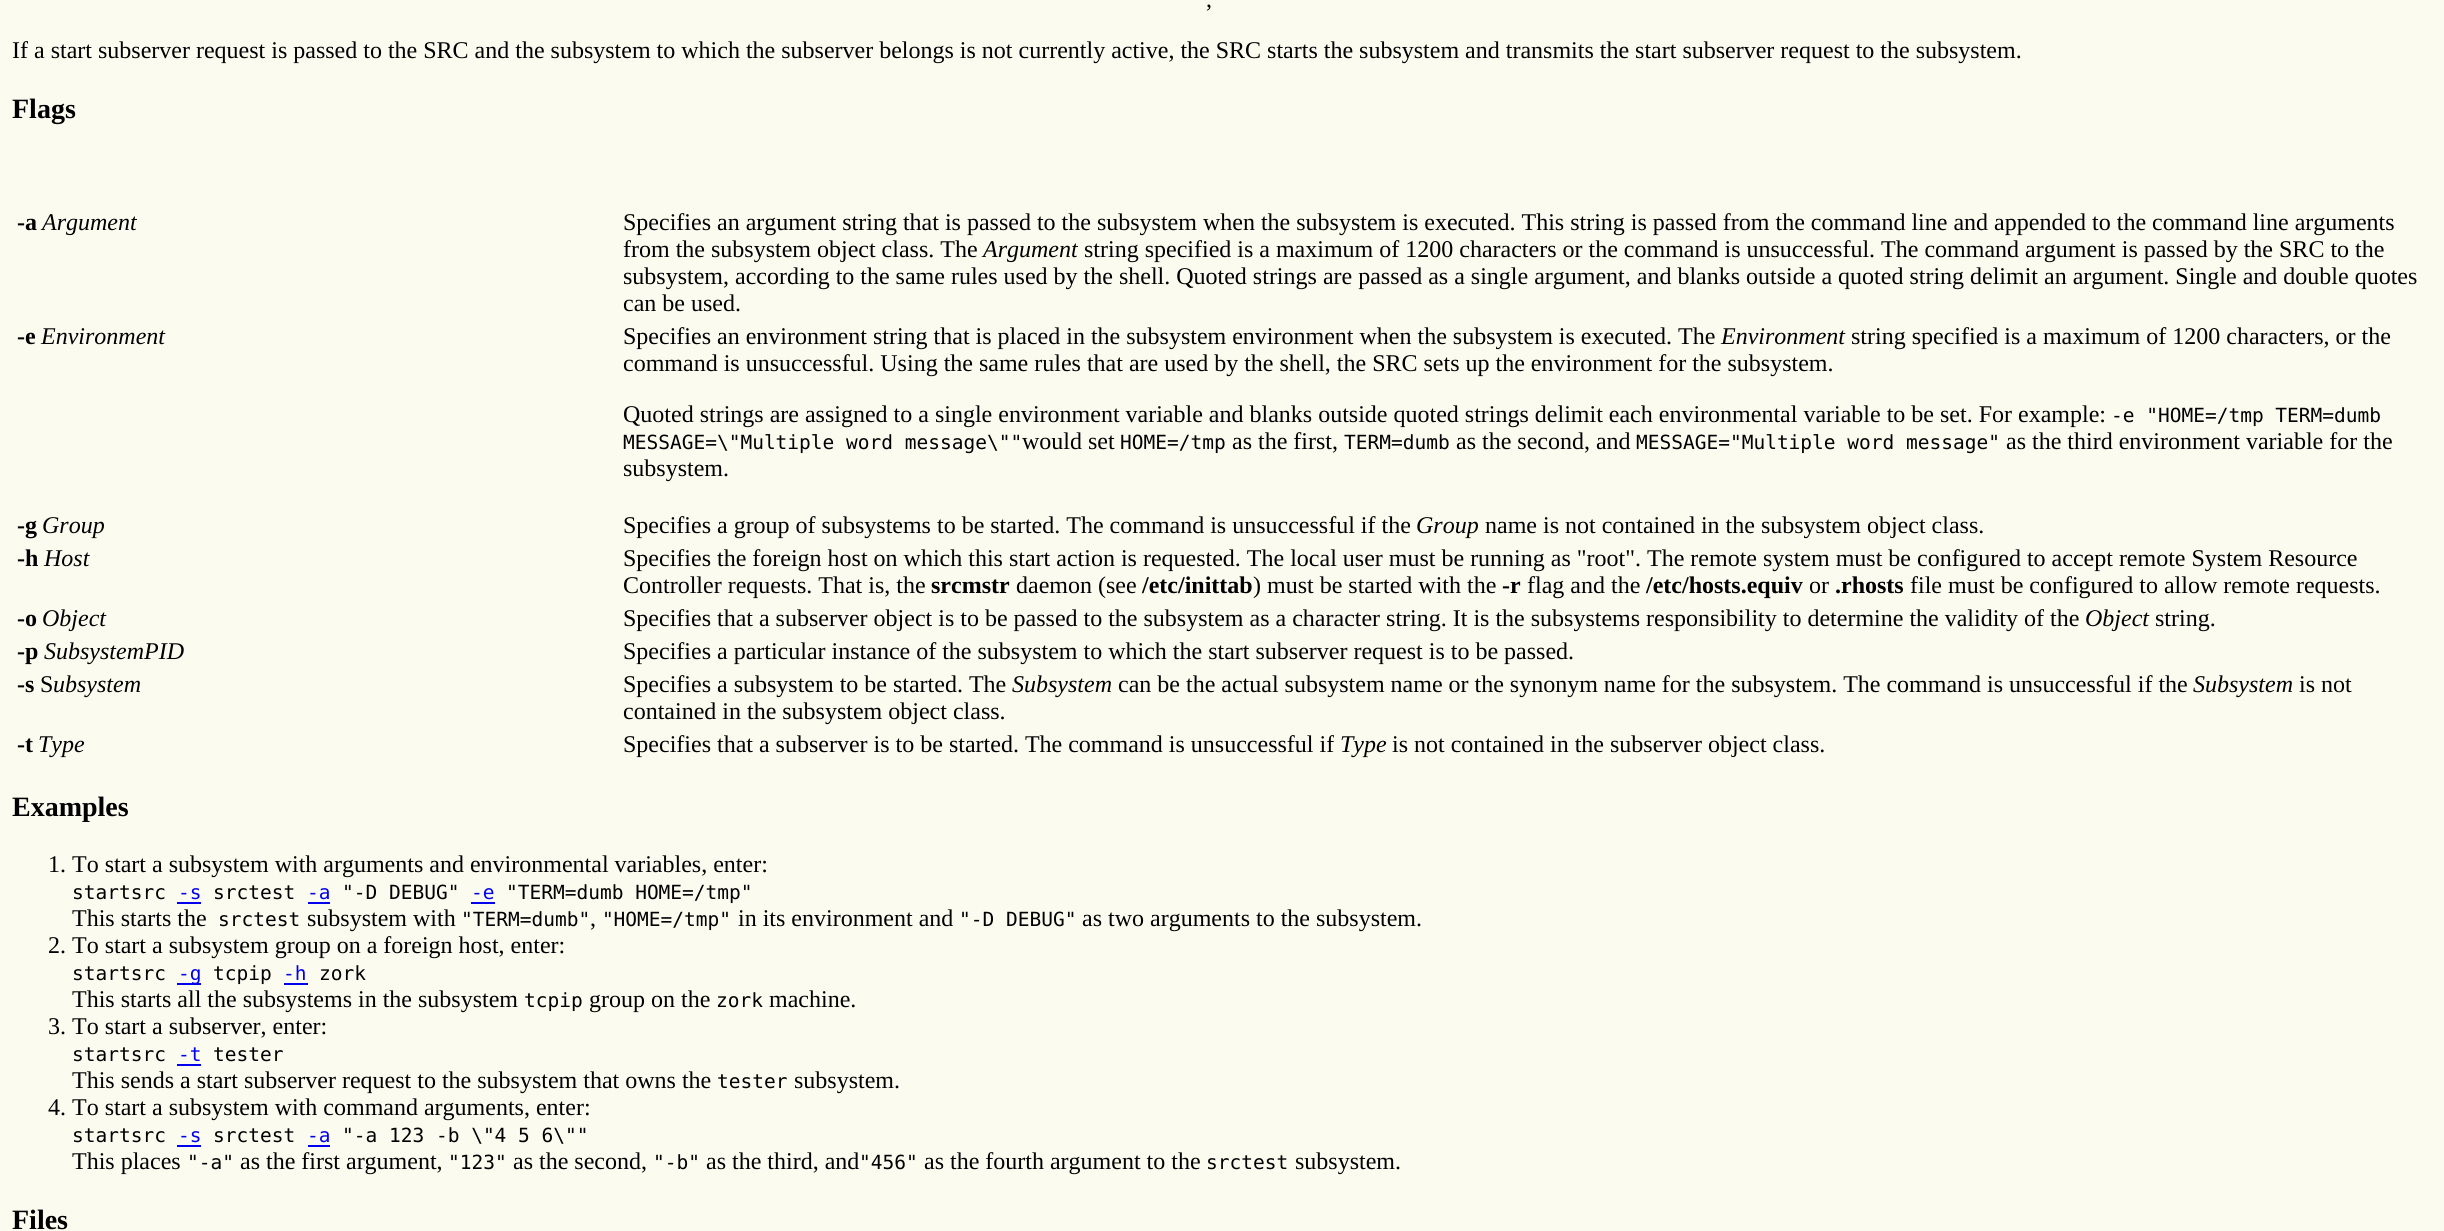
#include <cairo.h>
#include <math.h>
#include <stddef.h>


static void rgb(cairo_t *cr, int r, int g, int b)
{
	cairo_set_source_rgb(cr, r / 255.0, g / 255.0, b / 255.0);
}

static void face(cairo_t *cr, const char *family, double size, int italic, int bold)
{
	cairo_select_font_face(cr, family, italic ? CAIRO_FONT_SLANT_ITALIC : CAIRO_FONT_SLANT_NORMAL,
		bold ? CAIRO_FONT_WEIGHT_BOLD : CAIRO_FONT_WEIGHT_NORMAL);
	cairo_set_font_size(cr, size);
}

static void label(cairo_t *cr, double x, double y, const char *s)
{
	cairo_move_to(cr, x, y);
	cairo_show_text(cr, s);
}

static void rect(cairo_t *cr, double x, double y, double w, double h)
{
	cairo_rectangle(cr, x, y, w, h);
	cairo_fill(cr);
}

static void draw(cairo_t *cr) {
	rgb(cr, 252, 251, 240);
	cairo_paint(cr);
	face(cr, "Liberation Serif", 24, 0, 0);
	rgb(cr, 0, 0, 0);
	label(cr, 1206, 7, ",");
	label(cr, 12, 58, "If a start subserver request is passed to the SRC and the subsystem to which the subserver belongs is not currently active, the SRC starts the subsystem and transmits the start subserver request to the subsystem.");
	face(cr, "Liberation Serif", 28, 0, 1);
	label(cr, 12, 118, "Flags");
	face(cr, "Liberation Serif", 24, 0, 1);
	label(cr, 17, 230, "-a");
	face(cr, "Liberation Serif", 24, 1, 0);
	label(cr, 42, 230, "Argument");
	face(cr, "Liberation Serif", 24, 0, 0);
	label(cr, 623, 230, "Specifies an argument string that is passed to the subsystem when the subsystem is executed. This string is passed from the command line and appended to the command line arguments");
	label(cr, 623, 257, "from the subsystem object class. The");
	face(cr, "Liberation Serif", 24, 1, 0);
	label(cr, 983, 257, "Argument");
	face(cr, "Liberation Serif", 24, 0, 0);
	label(cr, 1084, 257, "string specified is a maximum of 1200 characters or the command is unsuccessful. The command argument is passed by the SRC to the");
	label(cr, 623, 284, "subsystem, according to the same rules used by the shell. Quoted strings are passed as a single argument, and blanks outside a quoted string delimit an argument. Single and double quotes");
	label(cr, 623, 311, "can be used.");
	face(cr, "Liberation Serif", 24, 0, 1);
	label(cr, 17, 344, "-e");
	face(cr, "Liberation Serif", 24, 1, 0);
	label(cr, 41, 344, "Environment");
	face(cr, "Liberation Serif", 24, 0, 0);
	label(cr, 623, 344, "Specifies an environment string that is placed in the subsystem environment when the subsystem is executed. The");
	face(cr, "Liberation Serif", 24, 1, 0);
	label(cr, 1721, 344, "Environment");
	face(cr, "Liberation Serif", 24, 0, 0);
	label(cr, 1851, 344, "string specified is a maximum of 1200 characters, or the");
	label(cr, 623, 371, "command is unsuccessful. Using the same rules that are used by the shell, the SRC sets up the environment for the subsystem.");
	label(cr, 623, 422, "Quoted strings are assigned to a single environment variable and blanks outside quoted strings delimit each environmental variable to be set. For example:");
	face(cr, "DejaVu Sans Mono", 19.5, 0, 0);
	label(cr, 2111, 422, "-e \"HOME=/tmp TERM=dumb");
	label(cr, 623, 449, "MESSAGE=\\\"Multiple word message\\\"\"");
	face(cr, "Liberation Serif", 24, 0, 0);
	label(cr, 1022, 449, "would set");
	face(cr, "DejaVu Sans Mono", 19.5, 0, 0);
	label(cr, 1120, 449, "HOME=/tmp");
	face(cr, "Liberation Serif", 24, 0, 0);
	label(cr, 1232, 449, "as the first,");
	face(cr, "DejaVu Sans Mono", 19.5, 0, 0);
	label(cr, 1344, 449, "TERM=dumb");
	face(cr, "Liberation Serif", 24, 0, 0);
	label(cr, 1456, 449, "as the second, and");
	face(cr, "DejaVu Sans Mono", 19.5, 0, 0);
	label(cr, 1636, 449, "MESSAGE=\"Multiple word message\"");
	face(cr, "Liberation Serif", 24, 0, 0);
	label(cr, 2006, 449, "as the third environment variable for the");
	label(cr, 623, 476, "subsystem.");
	face(cr, "Liberation Serif", 24, 0, 1);
	label(cr, 17, 533, "-g");
	face(cr, "Liberation Serif", 24, 1, 0);
	label(cr, 42, 533, "Group");
	face(cr, "Liberation Serif", 24, 0, 0);
	label(cr, 623, 533, "Specifies a group of subsystems to be started. The command is unsuccessful if the");
	face(cr, "Liberation Serif", 24, 1, 0);
	label(cr, 1416, 533, "Group");
	face(cr, "Liberation Serif", 24, 0, 0);
	label(cr, 1485, 533, "name is not contained in the subsystem object class.");
	face(cr, "Liberation Serif", 24, 0, 1);
	label(cr, 17, 566, "-h");
	face(cr, "Liberation Serif", 24, 1, 0);
	label(cr, 44, 566, "Host");
	face(cr, "Liberation Serif", 24, 0, 0);
	label(cr, 623, 566, "Specifies the foreign host on which this start action is requested. The local user must be running as \"root\". The remote system must be configured to accept remote System Resource");
	label(cr, 623, 593, "Controller requests. That is, the");
	face(cr, "Liberation Serif", 24, 0, 1);
	label(cr, 931, 593, "srcmstr");
	face(cr, "Liberation Serif", 24, 0, 0);
	label(cr, 1016, 593, "daemon (see");
	face(cr, "Liberation Serif", 24, 0, 1);
	label(cr, 1142, 593, "/etc/inittab");
	face(cr, "Liberation Serif", 24, 0, 0);
	label(cr, 1253, 593, ") must be started with the");
	face(cr, "Liberation Serif", 24, 0, 1);
	label(cr, 1502, 593, "-r");
	face(cr, "Liberation Serif", 24, 0, 0);
	label(cr, 1527, 593, "flag and the");
	face(cr, "Liberation Serif", 24, 0, 1);
	label(cr, 1646, 593, "/etc/hosts.equiv");
	face(cr, "Liberation Serif", 24, 0, 0);
	label(cr, 1809, 593, "or");
	face(cr, "Liberation Serif", 24, 0, 1);
	label(cr, 1835, 593, ".rhosts");
	face(cr, "Liberation Serif", 24, 0, 0);
	label(cr, 1910, 593, "file must be configured to allow remote requests.");
	face(cr, "Liberation Serif", 24, 0, 1);
	label(cr, 17, 626, "-o");
	face(cr, "Liberation Serif", 24, 1, 0);
	label(cr, 42, 626, "Object");
	face(cr, "Liberation Serif", 24, 0, 0);
	label(cr, 623, 626, "Specifies that a subserver object is to be passed to the subsystem as a character string. It is the subsystems responsibility to determine the validity of the");
	face(cr, "Liberation Serif", 24, 1, 0);
	label(cr, 2085, 626, "Object");
	face(cr, "Liberation Serif", 24, 0, 0);
	label(cr, 2155, 626, "string.");
	face(cr, "Liberation Serif", 24, 0, 1);
	label(cr, 17, 659, "-p");
	face(cr, "Liberation Serif", 24, 1, 0);
	label(cr, 44, 659, "SubsystemPID");
	face(cr, "Liberation Serif", 24, 0, 0);
	label(cr, 623, 659, "Specifies a particular instance of the subsystem to which the start subserver request is to be passed.");
	face(cr, "Liberation Serif", 24, 0, 1);
	label(cr, 17, 692, "-s");
	face(cr, "Liberation Serif", 24, 0, 0);
	label(cr, 40, 692, "S");
	face(cr, "Liberation Serif", 24, 1, 0);
	label(cr, 53, 692, "ubsystem");
	face(cr, "Liberation Serif", 24, 0, 0);
	label(cr, 623, 692, "Specifies a subsystem to be started. The");
	face(cr, "Liberation Serif", 24, 1, 0);
	label(cr, 1012, 692, "Subsystem");
	face(cr, "Liberation Serif", 24, 0, 0);
	label(cr, 1118, 692, "can be the actual subsystem name or the synonym name for the subsystem. The command is unsuccessful if the");
	face(cr, "Liberation Serif", 24, 1, 0);
	label(cr, 2193, 692, "Subsystem");
	face(cr, "Liberation Serif", 24, 0, 0);
	label(cr, 2299, 692, "is not");
	label(cr, 623, 719, "contained in the subsystem object class.");
	face(cr, "Liberation Serif", 24, 0, 1);
	label(cr, 17, 752, "-t");
	face(cr, "Liberation Serif", 24, 1, 0);
	label(cr, 38, 752, "Type");
	face(cr, "Liberation Serif", 24, 0, 0);
	label(cr, 623, 752, "Specifies that a subserver is to be started. The command is unsuccessful if");
	face(cr, "Liberation Serif", 24, 1, 0);
	label(cr, 1340, 752, "Type");
	face(cr, "Liberation Serif", 24, 0, 0);
	label(cr, 1392, 752, "is not contained in the subserver object class.");
	face(cr, "Liberation Serif", 28, 0, 1);
	label(cr, 12, 816, "Examples");
	face(cr, "Liberation Serif", 24, 0, 0);
	label(cr, 48, 872, "1. To start a subsystem with arguments and environmental variables, enter:");
	face(cr, "DejaVu Sans Mono", 19.5, 0, 0);
	label(cr, 72, 899, "startsrc");
	rgb(cr, 0, 0, 238);
	label(cr, 178, 899, "-s");
	rect(cr, 177, 902, 24, 2);
	rgb(cr, 0, 0, 0);
	label(cr, 213, 899, "srctest");
	rgb(cr, 0, 0, 238);
	label(cr, 307, 899, "-a");
	rect(cr, 308, 902, 22, 2);
	rgb(cr, 0, 0, 0);
	label(cr, 342, 899, "\"-D DEBUG\"");
	rgb(cr, 0, 0, 238);
	label(cr, 471, 899, "-e");
	rect(cr, 471, 902, 24, 2);
	rgb(cr, 0, 0, 0);
	label(cr, 506, 899, "\"TERM=dumb HOME=/tmp\"");
	face(cr, "Liberation Serif", 24, 0, 0);
	label(cr, 72, 926, "This starts the");
	face(cr, "DejaVu Sans Mono", 19.5, 0, 0);
	label(cr, 218, 926, "srctest");
	face(cr, "Liberation Serif", 24, 0, 0);
	label(cr, 307, 926, "subsystem with");
	face(cr, "DejaVu Sans Mono", 19.5, 0, 0);
	label(cr, 461, 926, "\"TERM=dumb\" \"HOME=/tmp\"");
	face(cr, "Liberation Serif", 24, 0, 0);
	label(cr, 738, 926, "in its environment and");
	face(cr, "DejaVu Sans Mono", 19.5, 0, 0);
	label(cr, 959, 926, "\"-D DEBUG\"");
	face(cr, "Liberation Serif", 24, 0, 0);
	label(cr, 1082, 926, "as two arguments to the subsystem.");
	label(cr, 590, 926, ",");
	label(cr, 48, 953, "2. To start a subsystem group on a foreign host, enter:");
	face(cr, "DejaVu Sans Mono", 19.5, 0, 0);
	label(cr, 72, 980, "startsrc");
	rgb(cr, 0, 0, 238);
	rect(cr, 177, 983, 24, 2);
	label(cr, 178, 980, "-g");
	rgb(cr, 0, 0, 0);
	label(cr, 213, 980, "tcpip");
	rgb(cr, 0, 0, 238);
	label(cr, 283, 980, "-h");
	rect(cr, 284, 983, 24, 2);
	rgb(cr, 0, 0, 0);
	label(cr, 319, 980, "zork");
	face(cr, "Liberation Serif", 24, 0, 0);
	label(cr, 72, 1007, "This starts all the subsystems in the subsystem");
	face(cr, "DejaVu Sans Mono", 19.5, 0, 0);
	label(cr, 524, 1007, "tcpip");
	face(cr, "Liberation Serif", 24, 0, 0);
	label(cr, 589, 1007, "group on the");
	face(cr, "DejaVu Sans Mono", 19.5, 0, 0);
	label(cr, 716, 1007, "zork");
	face(cr, "Liberation Serif", 24, 0, 0);
	label(cr, 769, 1007, "machine.");
	label(cr, 48, 1034, "3. To start a subserver, enter:");
	face(cr, "DejaVu Sans Mono", 19.5, 0, 0);
	label(cr, 72, 1061, "startsrc");
	rgb(cr, 0, 0, 238);
	label(cr, 178, 1061, "-t");
	rect(cr, 177, 1064, 24, 2);
	rgb(cr, 0, 0, 0);
	label(cr, 213, 1061, "tester");
	face(cr, "Liberation Serif", 24, 0, 0);
	label(cr, 72, 1088, "This sends a start subserver request to the subsystem that owns the");
	face(cr, "DejaVu Sans Mono", 19.5, 0, 0);
	label(cr, 717, 1088, "tester");
	face(cr, "Liberation Serif", 24, 0, 0);
	label(cr, 794, 1088, "subsystem.");
	label(cr, 48, 1115, "4. To start a subsystem with command arguments, enter:");
	face(cr, "DejaVu Sans Mono", 19.5, 0, 0);
	label(cr, 72, 1142, "startsrc");
	rgb(cr, 0, 0, 238);
	label(cr, 178, 1142, "-s");
	rect(cr, 177, 1145, 24, 2);
	rgb(cr, 0, 0, 0);
	label(cr, 213, 1142, "srctest");
	rgb(cr, 0, 0, 238);
	label(cr, 307, 1142, "-a");
	rect(cr, 308, 1145, 22, 2);
	rgb(cr, 0, 0, 0);
	label(cr, 342, 1142, "\"-a 123 -b \\\"4 5 6\\\"\"");
	face(cr, "Liberation Serif", 24, 0, 0);
	label(cr, 72, 1169, "This places");
	face(cr, "DejaVu Sans Mono", 19.5, 0, 0);
	label(cr, 187, 1169, "\"-a\"");
	face(cr, "Liberation Serif", 24, 0, 0);
	label(cr, 240, 1169, "as the first argument,");
	face(cr, "DejaVu Sans Mono", 19.5, 0, 0);
	label(cr, 448, 1169, "\"123\"");
	face(cr, "Liberation Serif", 24, 0, 0);
	label(cr, 513, 1169, "as the second,");
	face(cr, "DejaVu Sans Mono", 19.5, 0, 0);
	label(cr, 653, 1169, "\"-b\"");
	face(cr, "Liberation Serif", 24, 0, 0);
	label(cr, 706, 1169, "as the third, and");
	face(cr, "DejaVu Sans Mono", 19.5, 0, 0);
	label(cr, 859, 1169, "\"456\"");
	face(cr, "Liberation Serif", 24, 0, 0);
	label(cr, 924, 1169, "as the fourth argument to the");
	face(cr, "DejaVu Sans Mono", 19.5, 0, 0);
	label(cr, 1206, 1169, "srctest");
	face(cr, "Liberation Serif", 24, 0, 0);
	label(cr, 1295, 1169, "subsystem.");
	face(cr, "Liberation Serif", 28, 0, 1);
	label(cr, 12, 1229, "Files");
}

int main(void) {
	cairo_surface_t *surface = cairo_image_surface_create(CAIRO_FORMAT_RGB24, 2444, 1231);
	cairo_t *cr = cairo_create(surface);
	cairo_font_options_t *options = cairo_font_options_create();
	cairo_font_options_set_hint_metrics(options, CAIRO_HINT_METRICS_OFF);
	cairo_font_options_set_hint_style(options, CAIRO_HINT_STYLE_NONE);
	cairo_set_font_options(cr, options);
	cairo_set_miter_limit(cr, 4);
	draw(cr);
	cairo_surface_write_to_png(surface, "render.png");
	cairo_font_options_destroy(options);
	cairo_destroy(cr);
	cairo_surface_destroy(surface);
	return 0;
}
